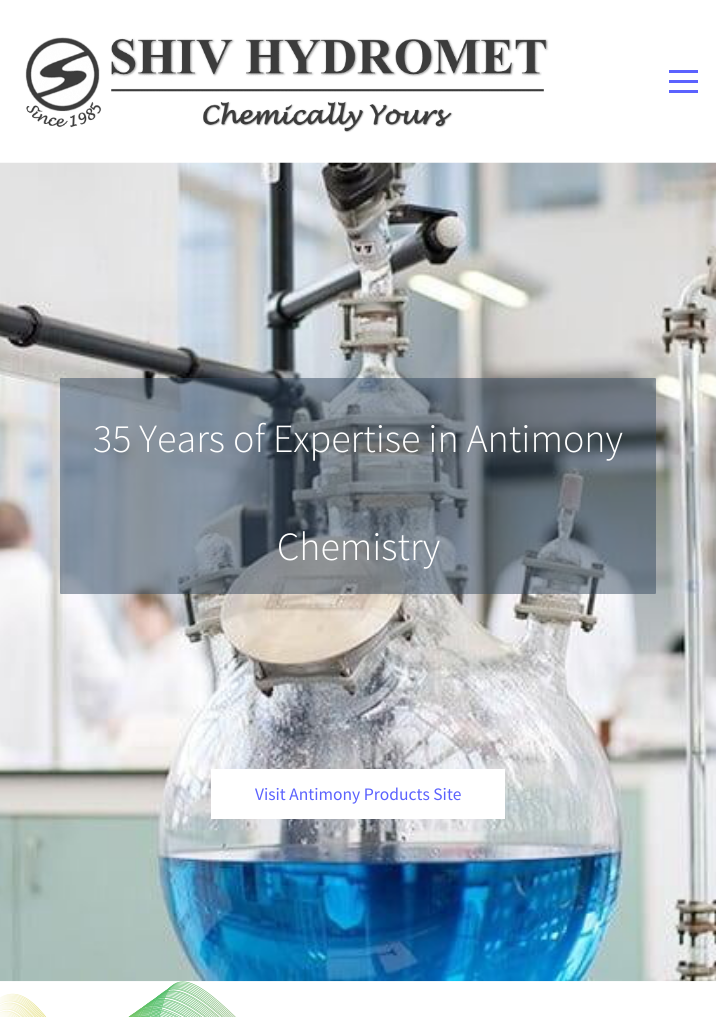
#include <cairo.h>
#include <math.h>
#include <stddef.h>


static void rgb(cairo_t *cr, int r, int g, int b)
{
	cairo_set_source_rgb(cr, r / 255.0, g / 255.0, b / 255.0);
}

static void face(cairo_t *cr, const char *family, double size, int italic, int bold)
{
	cairo_select_font_face(cr, family, italic ? CAIRO_FONT_SLANT_ITALIC : CAIRO_FONT_SLANT_NORMAL,
		bold ? CAIRO_FONT_WEIGHT_BOLD : CAIRO_FONT_WEIGHT_NORMAL);
	cairo_set_font_size(cr, size);
}

static void label(cairo_t *cr, double x, double y, const char *s)
{
	cairo_move_to(cr, x, y);
	cairo_show_text(cr, s);
}

static void rect(cairo_t *cr, double x, double y, double w, double h)
{
	cairo_rectangle(cr, x, y, w, h);
	cairo_fill(cr);
}

static void rrect(cairo_t *cr, double x, double y, double w, double h, double r)
{
	cairo_new_sub_path(cr);
	cairo_arc(cr, x + w - r, y + h - r, r, 0, M_PI / 2);
	cairo_arc(cr, x + r, y + h - r, r, M_PI / 2, M_PI);
	cairo_arc(cr, x + r, y + r, r, M_PI, 1.5 * M_PI);
	cairo_arc(cr, x + w - r, y + r, r, 1.5 * M_PI, 2 * M_PI);
	cairo_close_path(cr);
}

static void image(cairo_t *cr, const char *path, double x, double y, double w, double h)
{
	cairo_surface_t *image = cairo_image_surface_create_from_png(path);
	cairo_save(cr);
	cairo_set_source_surface(cr, image, x, y);
	cairo_rectangle(cr, x, y, w, h);
	cairo_fill(cr);
	cairo_restore(cr);
	cairo_surface_destroy(image);
}

static void draw(cairo_t *cr) {
	rgb(cr, 255, 255, 255);
	cairo_paint(cr);
	image(cr, "image0.png", 25, 37, 524, 96);
	rgb(cr, 91, 98, 254);
	rect(cr, 669, 70, 29, 3);
	rect(cr, 669, 80, 29, 3);
	rect(cr, 669, 90, 29, 3);
	image(cr, "image2.png", 0, 981, 236, 36);
	image(cr, "image1.png", 0, 162, 716, 820);
	cairo_set_source_rgba(cr, 0.204, 0.286, 0.369, 0.5);
	rrect(cr, 60, 378, 596, 216, 1);
	cairo_fill(cr);
	face(cr, "Source Sans Pro Light", 40, 0, 0);
	rgb(cr, 255, 255, 255);
	label(cr, 93, 452, "35 Years of Expertise in Antimony");
	label(cr, 277, 560, "Chemistry");
	rect(cr, 211, 769, 294, 50);
	face(cr, "Source Sans Pro", 17.5, 0, 0);
	rgb(cr, 91, 98, 254);
	label(cr, 255, 800, "Visit Antimony Products Site");
}

int main(void) {
	cairo_surface_t *surface = cairo_image_surface_create(CAIRO_FORMAT_RGB24, 716, 1017);
	cairo_t *cr = cairo_create(surface);
	cairo_font_options_t *options = cairo_font_options_create();
	cairo_font_options_set_hint_metrics(options, CAIRO_HINT_METRICS_OFF);
	cairo_font_options_set_hint_style(options, CAIRO_HINT_STYLE_NONE);
	cairo_set_font_options(cr, options);
	cairo_set_miter_limit(cr, 4);
	draw(cr);
	cairo_surface_write_to_png(surface, "render.png");
	cairo_font_options_destroy(options);
	cairo_destroy(cr);
	cairo_surface_destroy(surface);
	return 0;
}
